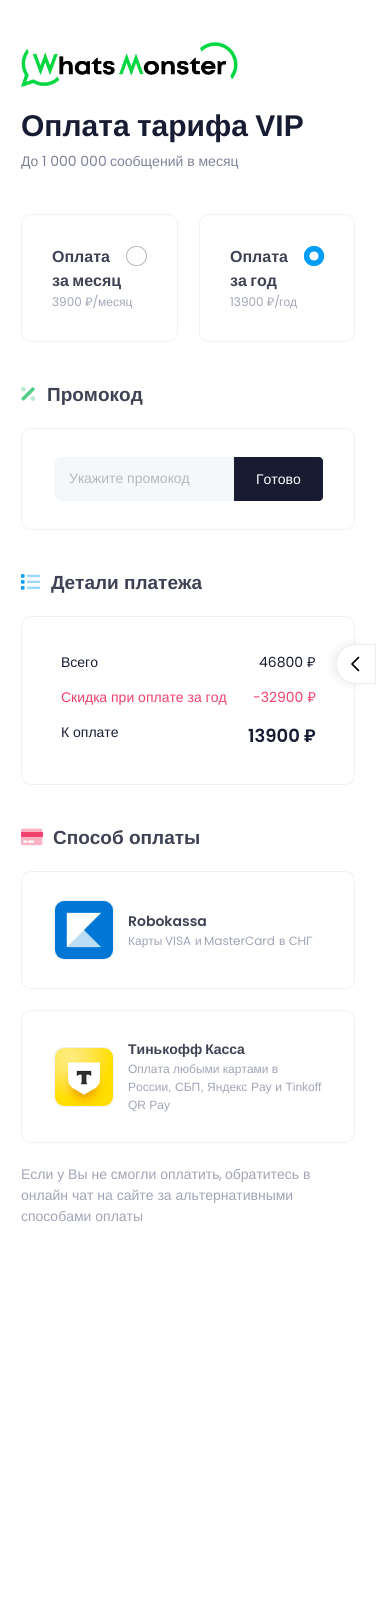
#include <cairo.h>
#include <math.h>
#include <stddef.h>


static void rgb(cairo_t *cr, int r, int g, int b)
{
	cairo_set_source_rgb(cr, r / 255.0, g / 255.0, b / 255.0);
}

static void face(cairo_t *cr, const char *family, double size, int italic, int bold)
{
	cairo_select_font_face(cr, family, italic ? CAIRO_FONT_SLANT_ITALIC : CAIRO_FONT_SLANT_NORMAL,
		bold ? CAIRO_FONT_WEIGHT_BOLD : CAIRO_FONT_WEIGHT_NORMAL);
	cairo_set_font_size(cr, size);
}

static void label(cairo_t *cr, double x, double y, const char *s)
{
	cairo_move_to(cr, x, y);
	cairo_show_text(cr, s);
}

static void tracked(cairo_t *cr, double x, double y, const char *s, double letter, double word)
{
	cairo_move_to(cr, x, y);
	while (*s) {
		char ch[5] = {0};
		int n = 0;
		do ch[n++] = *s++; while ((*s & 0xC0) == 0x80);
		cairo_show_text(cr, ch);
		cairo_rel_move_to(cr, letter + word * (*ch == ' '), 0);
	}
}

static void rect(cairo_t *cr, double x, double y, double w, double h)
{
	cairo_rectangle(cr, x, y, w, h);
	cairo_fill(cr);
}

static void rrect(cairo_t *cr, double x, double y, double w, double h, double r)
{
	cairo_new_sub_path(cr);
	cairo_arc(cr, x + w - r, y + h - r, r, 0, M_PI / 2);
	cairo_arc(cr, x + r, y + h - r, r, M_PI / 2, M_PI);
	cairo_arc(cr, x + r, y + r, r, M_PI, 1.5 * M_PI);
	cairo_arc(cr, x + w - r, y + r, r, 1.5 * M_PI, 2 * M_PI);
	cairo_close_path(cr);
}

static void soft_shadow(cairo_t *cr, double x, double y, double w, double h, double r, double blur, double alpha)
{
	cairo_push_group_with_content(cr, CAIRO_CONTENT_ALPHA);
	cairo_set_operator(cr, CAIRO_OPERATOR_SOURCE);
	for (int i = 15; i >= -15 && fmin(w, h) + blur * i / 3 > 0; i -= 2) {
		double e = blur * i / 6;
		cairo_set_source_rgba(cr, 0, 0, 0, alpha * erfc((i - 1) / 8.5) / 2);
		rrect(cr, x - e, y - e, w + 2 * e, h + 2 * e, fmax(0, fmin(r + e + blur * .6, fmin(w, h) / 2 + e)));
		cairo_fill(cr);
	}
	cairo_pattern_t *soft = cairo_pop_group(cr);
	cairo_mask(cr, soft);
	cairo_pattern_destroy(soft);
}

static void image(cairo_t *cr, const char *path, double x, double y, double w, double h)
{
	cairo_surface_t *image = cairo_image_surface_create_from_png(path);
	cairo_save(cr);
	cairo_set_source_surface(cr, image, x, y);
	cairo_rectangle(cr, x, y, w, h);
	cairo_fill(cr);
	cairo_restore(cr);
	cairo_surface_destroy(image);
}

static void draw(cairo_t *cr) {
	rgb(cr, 255, 255, 255);
	cairo_paint(cr);
	image(cr, "image0.png", 21, 42, 217, 45);
	face(cr, "Liberation Sans", 30, 0, 1);
	rgb(cr, 24, 28, 50);
	tracked(cr, 21, 136, "Оплата тарифа VIP", 0, -1);
	face(cr, "Liberation Sans", 14, 0, 0);
	rgb(cr, 126, 130, 153);
	label(cr, 21, 166, "До");
	face(cr, "Poppins", 14, 0, 0);
	label(cr, 42, 166, "1 000 000");
	face(cr, "Liberation Sans", 14, 0, 0);
	label(cr, 110, 166, "сообщений в месяц");
	rrect(cr, 21.5, 214.5, 156, 127, 9.5);
	rgb(cr, 239, 242, 245);
	cairo_set_line_width(cr, 1);
	cairo_stroke(cr);
	face(cr, "Liberation Sans", 16, 0, 1);
	rgb(cr, 63, 66, 84);
	label(cr, 52, 262, "Оплата");
	tracked(cr, 52, 286, "за месяц", 0, -1);
	rrect(cr, 126.5, 246.5, 20, 19, 9.5);
	rgb(cr, 181, 181, 195);
	cairo_stroke(cr);
	face(cr, "Poppins", 12, 0, 0);
	rgb(cr, 161, 165, 183);
	label(cr, 52, 306, "3900 ₽/");
	face(cr, "Liberation Sans", 12, 0, 0);
	label(cr, 98, 306, "месяц");
	rrect(cr, 199.5, 214.5, 155, 127, 9.5);
	rgb(cr, 239, 242, 245);
	cairo_stroke(cr);
	face(cr, "Liberation Sans", 16, 0, 1);
	rgb(cr, 63, 66, 84);
	label(cr, 230, 262, "Оплата");
	tracked(cr, 230, 286, "за год", 0, -1);
	rgb(cr, 0, 158, 247);
	cairo_new_path(cr);
	cairo_arc(cr, 314, 256, 10, 0, 2 * M_PI);
	cairo_fill(cr);
	rgb(cr, 255, 255, 255);
	cairo_arc(cr, 314, 256, 4.5, 0, 2 * M_PI);
	cairo_fill(cr);
	cairo_arc(cr, 314, 256, 9.5, 0, 2 * M_PI);
	rgb(cr, 0, 158, 247);
	cairo_stroke(cr);
	face(cr, "Poppins", 12, 0, 0);
	rgb(cr, 161, 165, 183);
	label(cr, 230, 306, "13900 ₽/");
	face(cr, "Liberation Sans", 12, 0, 0);
	label(cr, 279, 306, "год");
	image(cr, "image2.png", 21, 387, 14, 14);
	image(cr, "image1.png", 21, 386, 15, 15);
	face(cr, "Liberation Sans", 19, 0, 1);
	rgb(cr, 63, 66, 84);
	label(cr, 47, 401, "Промокод");
	rrect(cr, 21.5, 428.5, 333, 101, 9.5);
	rgb(cr, 239, 242, 245);
	cairo_stroke(cr);
	rgb(cr, 245, 248, 250);
	cairo_new_path(cr);
	cairo_move_to(cr, 61, 457.5);
	cairo_line_to(cr, 234.5, 457.5);
	cairo_line_to(cr, 234.5, 500.5);
	cairo_line_to(cr, 61, 500.5);
	cairo_curve_to(cr, 57.5, 500.5, 54.5, 497.5, 54.5, 494);
	cairo_line_to(cr, 54.5, 464);
	cairo_curve_to(cr, 54.5, 460.5, 57.5, 457.5, 61, 457.5);
	cairo_close_path(cr);
	cairo_fill_preserve(cr);
	cairo_stroke(cr);
	face(cr, "Liberation Sans", 14, 0, 0);
	rgb(cr, 184, 184, 184);
	label(cr, 69, 483, "Укажите промокод");
	rgb(cr, 24, 28, 50);
	cairo_new_path(cr);
	cairo_move_to(cr, 234, 457);
	cairo_line_to(cr, 319, 457);
	cairo_curve_to(cr, 321, 457, 323, 459, 323, 461);
	cairo_line_to(cr, 323, 497);
	cairo_curve_to(cr, 323, 499, 321, 501, 319, 501);
	cairo_line_to(cr, 234, 501);
	cairo_close_path(cr);
	cairo_fill(cr);
	rgb(cr, 255, 255, 255);
	label(cr, 256, 484, "Готово");
	image(cr, "image3.png", 21, 574, 4, 16);
	image(cr, "image4.png", 26, 574, 14, 15);
	face(cr, "Liberation Sans", 19, 0, 1);
	rgb(cr, 63, 66, 84);
	label(cr, 51, 589, "Детали платежа");
	rrect(cr, 21.5, 616.5, 333, 168, 9.5);
	rgb(cr, 239, 242, 245);
	cairo_stroke(cr);
	face(cr, "Liberation Sans", 14, 0, 0);
	rgb(cr, 24, 28, 50);
	label(cr, 61, 667, "Всего");
	face(cr, "Poppins", 14, 0, 0);
	label(cr, 259, 667, "46800 ₽");
	face(cr, "Liberation Sans", 14, 0, 0);
	rgb(cr, 241, 65, 108);
	label(cr, 61, 702, "Скидка при оплате за год");
	face(cr, "Poppins", 14, 0, 0);
	label(cr, 253, 702, "-32900 ₽");
	face(cr, "Liberation Sans", 14, 0, 0);
	rgb(cr, 24, 28, 50);
	label(cr, 61, 737, "К оплате");
	face(cr, "Poppins SemiBold", 18, 0, 0);
	label(cr, 248, 742, "13900 ₽");
	rgb(cr, 241, 65, 108);
	rect(cr, 21, 832, 22, 5);
	image(cr, "image5.png", 21, 828, 22, 18);
	face(cr, "Liberation Sans", 19, 0, 1);
	rgb(cr, 63, 66, 84);
	label(cr, 53, 844, "Способ оплаты");
	rrect(cr, 21.5, 871.5, 333, 117, 9.5);
	rgb(cr, 239, 242, 245);
	cairo_stroke(cr);
	rrect(cr, 54.5, 900.5, 59, 59, 9.5);
	cairo_stroke(cr);
	image(cr, "image6.png", 55, 901, 58, 58);
	face(cr, "Poppins SemiBold", 14, 0, 0);
	rgb(cr, 63, 66, 84);
	label(cr, 128, 926, "Robokassa");
	face(cr, "Liberation Sans", 12, 0, 0);
	rgb(cr, 161, 165, 183);
	label(cr, 128, 945, "Карты");
	face(cr, "Poppins", 12, 0, 0);
	label(cr, 165, 945, "VISA");
	face(cr, "Liberation Sans", 12, 0, 0);
	label(cr, 195, 945, "и");
	face(cr, "Poppins", 12, 0, 0);
	label(cr, 204, 945, "MasterCard");
	face(cr, "Liberation Sans", 12, 0, 0);
	label(cr, 279, 945, "в СНГ");
	rrect(cr, 21.5, 1010.5, 333, 132, 9.5);
	rgb(cr, 239, 242, 245);
	cairo_stroke(cr);
	rrect(cr, 54.5, 1047.5, 59, 59, 9.5);
	cairo_stroke(cr);
	image(cr, "image7.png", 55, 1048, 58, 58);
	face(cr, "Liberation Sans", 14, 0, 1);
	rgb(cr, 63, 66, 84);
	tracked(cr, 128, 1054, "Тинькофф Касса", 0, -1);
	face(cr, "Liberation Sans", 12, 0, 0);
	rgb(cr, 161, 165, 183);
	label(cr, 128, 1073, "Оплата любыми картами в");
	tracked(cr, 128, 1091, "России, СБП, Яндекс Pay и Tinkoff", 0, 0.25);
	label(cr, 128, 1109, "QR Pay");
	face(cr, "Liberation Sans", 14, 0, 0);
	label(cr, 21, 1179, "Если у Вы не смогли оплатить");
	face(cr, "Poppins", 14, 0, 0);
	label(cr, 219, 1179, ",");
	face(cr, "Liberation Sans", 14, 0, 0);
	label(cr, 225, 1179, "обратитесь в");
	label(cr, 21, 1200, "онлайн чат на сайте за альтернативными");
	label(cr, 21, 1221, "способами оплаты");
	rgb(cr, 0, 0, 0);
	soft_shadow(cr, 335, 646, 36, 36, 18, 5, 0.1);
	rgb(cr, 255, 255, 255);
	cairo_new_path(cr);
	cairo_move_to(cr, 356, 644.5);
	cairo_line_to(cr, 375.5, 644.5);
	cairo_line_to(cr, 375.5, 683.5);
	cairo_line_to(cr, 356, 683.5);
	cairo_curve_to(cr, 345, 683.5, 336.5, 675, 336.5, 664);
	cairo_curve_to(cr, 336.5, 653, 345, 644.5, 356, 644.5);
	cairo_close_path(cr);
	cairo_fill_preserve(cr);
	rgb(cr, 238, 238, 238);
	cairo_stroke(cr);
	cairo_new_path(cr);
	cairo_move_to(cr, 358.5, 657.5);
	cairo_line_to(cr, 352, 664);
	cairo_line_to(cr, 358.5, 670.5);
	rgb(cr, 0, 0, 0);
	cairo_set_line_width(cr, 1.7);
	cairo_set_line_cap(cr, CAIRO_LINE_CAP_ROUND);
	cairo_set_line_join(cr, CAIRO_LINE_JOIN_ROUND);
	cairo_stroke(cr);
}

int main(void) {
	cairo_surface_t *surface = cairo_image_surface_create(CAIRO_FORMAT_RGB24, 376, 1608);
	cairo_t *cr = cairo_create(surface);
	cairo_font_options_t *options = cairo_font_options_create();
	cairo_font_options_set_hint_metrics(options, CAIRO_HINT_METRICS_OFF);
	cairo_font_options_set_hint_style(options, CAIRO_HINT_STYLE_NONE);
	cairo_set_font_options(cr, options);
	cairo_set_miter_limit(cr, 4);
	draw(cr);
	cairo_surface_write_to_png(surface, "render.png");
	cairo_font_options_destroy(options);
	cairo_destroy(cr);
	cairo_surface_destroy(surface);
	return 0;
}
